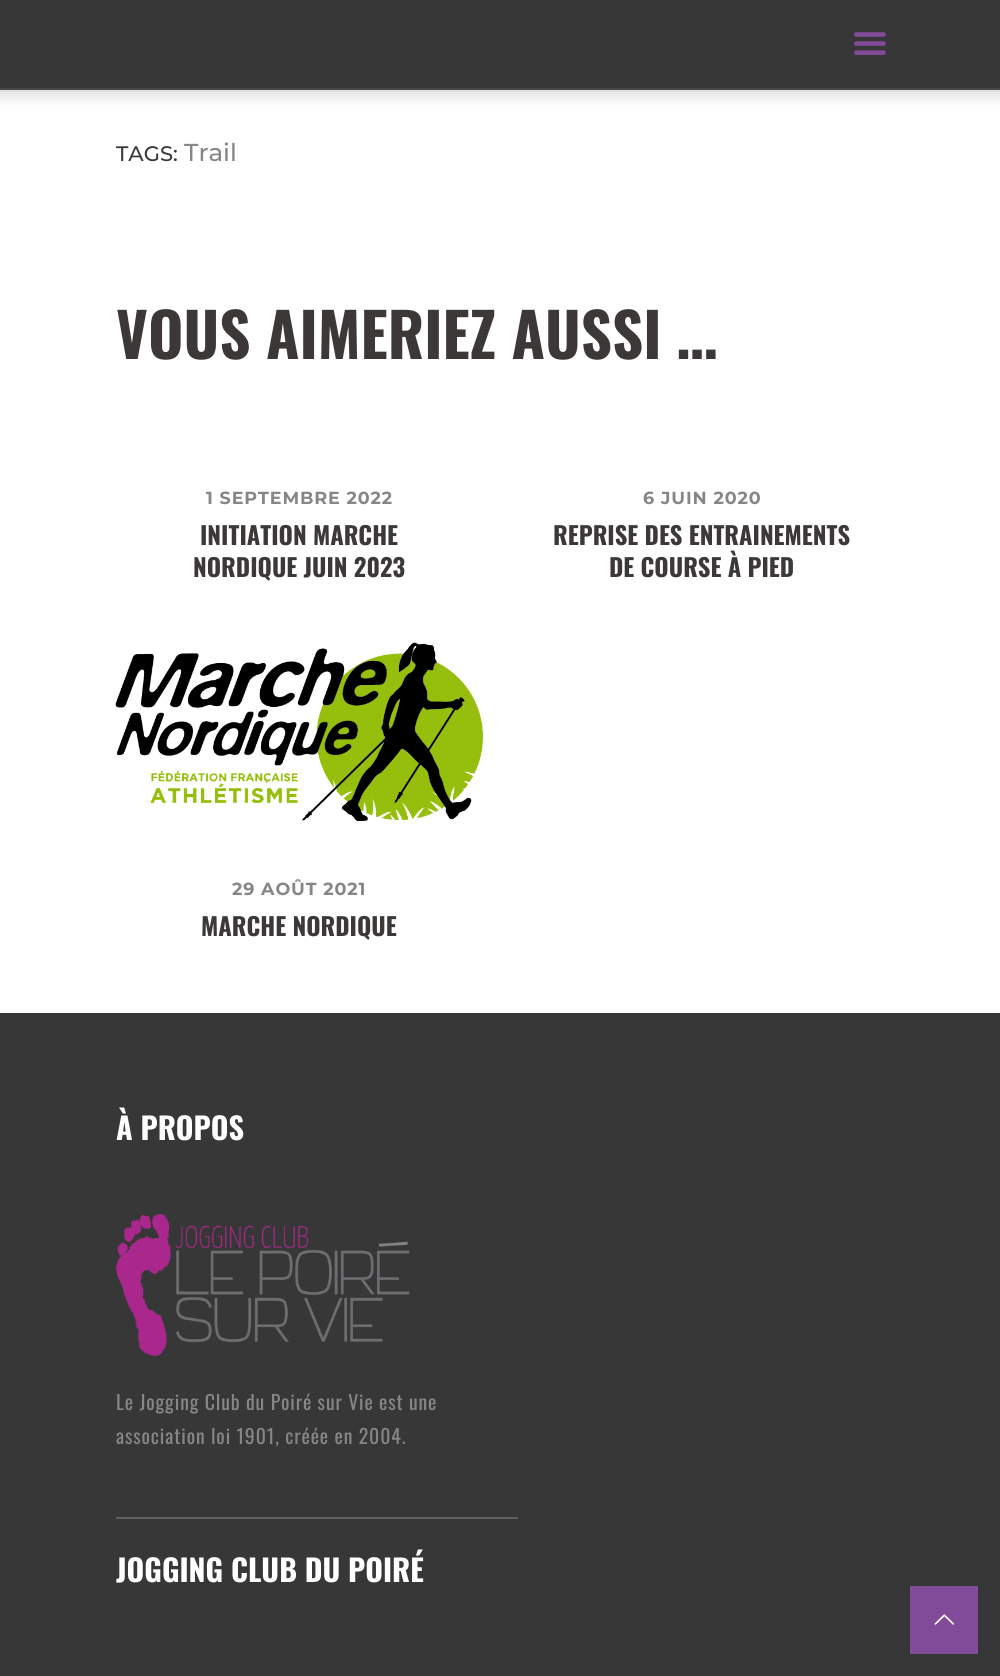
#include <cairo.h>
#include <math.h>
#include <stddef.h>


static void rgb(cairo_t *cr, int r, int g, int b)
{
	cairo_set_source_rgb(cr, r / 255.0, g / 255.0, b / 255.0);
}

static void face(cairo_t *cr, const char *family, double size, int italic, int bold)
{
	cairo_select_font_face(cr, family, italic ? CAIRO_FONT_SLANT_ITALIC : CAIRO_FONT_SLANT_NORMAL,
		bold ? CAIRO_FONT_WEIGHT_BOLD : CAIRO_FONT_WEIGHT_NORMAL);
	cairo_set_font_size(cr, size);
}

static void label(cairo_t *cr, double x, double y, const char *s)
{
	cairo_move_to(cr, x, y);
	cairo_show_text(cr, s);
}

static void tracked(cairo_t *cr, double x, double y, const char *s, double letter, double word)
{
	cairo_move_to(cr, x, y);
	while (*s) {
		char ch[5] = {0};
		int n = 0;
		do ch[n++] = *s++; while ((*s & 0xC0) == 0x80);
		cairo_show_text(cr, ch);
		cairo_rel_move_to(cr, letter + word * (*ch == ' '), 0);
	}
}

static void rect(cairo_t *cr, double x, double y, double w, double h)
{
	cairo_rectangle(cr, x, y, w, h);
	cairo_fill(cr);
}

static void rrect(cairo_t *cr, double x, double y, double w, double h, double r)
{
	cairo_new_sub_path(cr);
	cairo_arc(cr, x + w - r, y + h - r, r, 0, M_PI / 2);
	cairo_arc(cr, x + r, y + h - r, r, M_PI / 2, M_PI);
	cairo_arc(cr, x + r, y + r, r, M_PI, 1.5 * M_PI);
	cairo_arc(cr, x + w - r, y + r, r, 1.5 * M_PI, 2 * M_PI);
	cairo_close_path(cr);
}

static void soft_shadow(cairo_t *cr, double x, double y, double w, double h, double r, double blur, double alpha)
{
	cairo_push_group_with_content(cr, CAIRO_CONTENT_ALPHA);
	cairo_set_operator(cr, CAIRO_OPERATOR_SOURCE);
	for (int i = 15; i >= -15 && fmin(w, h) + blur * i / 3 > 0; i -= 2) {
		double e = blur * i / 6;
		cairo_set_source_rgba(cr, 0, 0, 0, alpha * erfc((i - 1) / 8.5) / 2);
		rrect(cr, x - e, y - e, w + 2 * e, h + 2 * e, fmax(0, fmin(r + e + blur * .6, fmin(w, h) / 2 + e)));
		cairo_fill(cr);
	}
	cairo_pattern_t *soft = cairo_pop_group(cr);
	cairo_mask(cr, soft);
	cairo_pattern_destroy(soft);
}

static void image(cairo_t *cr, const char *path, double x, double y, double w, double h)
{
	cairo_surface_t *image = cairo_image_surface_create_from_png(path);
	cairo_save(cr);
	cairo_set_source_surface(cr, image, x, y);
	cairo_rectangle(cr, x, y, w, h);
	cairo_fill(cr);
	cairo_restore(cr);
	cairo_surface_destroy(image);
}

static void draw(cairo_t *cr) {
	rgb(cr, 255, 255, 255);
	cairo_paint(cr);
	rgb(cr, 0, 0, 0);
	soft_shadow(cr, -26, 4, 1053, 89, 0, 9, 0.2);
	rgb(cr, 56, 55, 55);
	rect(cr, 0, 0, 1000, 88);
	rgb(cr, 74, 74, 74);
	rect(cr, 0, 88, 1000, 2);
	image(cr, "image0.png", 854, 32, 32, 23);
	face(cr, "Montserrat Medium", 21, 0, 0);
	rgb(cr, 60, 56, 56);
	label(cr, 116, 161, "TAGS:");
	face(cr, "Montserrat Medium", 24.5, 0, 0);
	rgb(cr, 136, 133, 133);
	label(cr, 184, 161, "Trail");
	face(cr, "Oswald", 60.75, 0, 1);
	rgb(cr, 60, 56, 56);
	label(cr, 116, 359, "VOUS AIMERIEZ AUSSI …");
	face(cr, "Montserrat", 17.5, 0, 1);
	rgb(cr, 136, 133, 133);
	tracked(cr, 206, 504, "1 SEPTEMBRE 2022", 0.9, 0);
	face(cr, "Oswald", 24.5, 0, 1);
	rgb(cr, 60, 56, 56);
	label(cr, 200, 545, "INITIATION MARCHE");
	label(cr, 193, 577, "NORDIQUE JUIN 2023");
	face(cr, "Montserrat", 17.5, 0, 1);
	rgb(cr, 136, 133, 133);
	tracked(cr, 643, 504, "6 JUIN 2020", 0.9, 0);
	face(cr, "Oswald", 24.5, 0, 1);
	rgb(cr, 60, 56, 56);
	label(cr, 553, 545, "REPRISE DES ENTRAINEMENTS");
	label(cr, 609, 577, "DE COURSE À PIED");
	image(cr, "image1.png", 115, 642, 368, 179);
	face(cr, "Montserrat", 17.5, 0, 1);
	rgb(cr, 136, 133, 133);
	tracked(cr, 232, 895, "29 AOÛT 2021", 0.9, 0);
	face(cr, "Oswald", 24.5, 0, 1);
	rgb(cr, 60, 56, 56);
	label(cr, 201, 936, "MARCHE NORDIQUE");
	rgb(cr, 56, 55, 55);
	rect(cr, 0, 1013, 1000, 663);
	face(cr, "Oswald", 30.25, 0, 1);
	rgb(cr, 255, 255, 255);
	label(cr, 116, 1140, "À PROPOS");
	image(cr, "image2.png", 115, 1213, 295, 144);
	face(cr, "Oswald", 19.75, 0, 0);
	rgb(cr, 136, 133, 133);
	tracked(cr, 116, 1410, "Le Jogging Club du Poiré sur Vie est une", 0.9, 0);
	tracked(cr, 116, 1444, "association loi 1901, créée en 2004.", 0.9, 0);
	rgb(cr, 95, 95, 95);
	rect(cr, 116, 1517, 402, 2);
	face(cr, "Oswald", 30.25, 0, 1);
	rgb(cr, 255, 255, 255);
	label(cr, 116, 1582, "JOGGING CLUB DU POIRÉ");
	rgb(cr, 130, 75, 154);
	rect(cr, 910, 1586, 68, 68);
	image(cr, "image3.png", 934, 1614, 21, 11);
}

int main(void) {
	cairo_surface_t *surface = cairo_image_surface_create(CAIRO_FORMAT_RGB24, 1000, 1676);
	cairo_t *cr = cairo_create(surface);
	cairo_font_options_t *options = cairo_font_options_create();
	cairo_font_options_set_hint_metrics(options, CAIRO_HINT_METRICS_OFF);
	cairo_font_options_set_hint_style(options, CAIRO_HINT_STYLE_NONE);
	cairo_set_font_options(cr, options);
	cairo_set_miter_limit(cr, 4);
	draw(cr);
	cairo_surface_write_to_png(surface, "render.png");
	cairo_font_options_destroy(options);
	cairo_destroy(cr);
	cairo_surface_destroy(surface);
	return 0;
}
